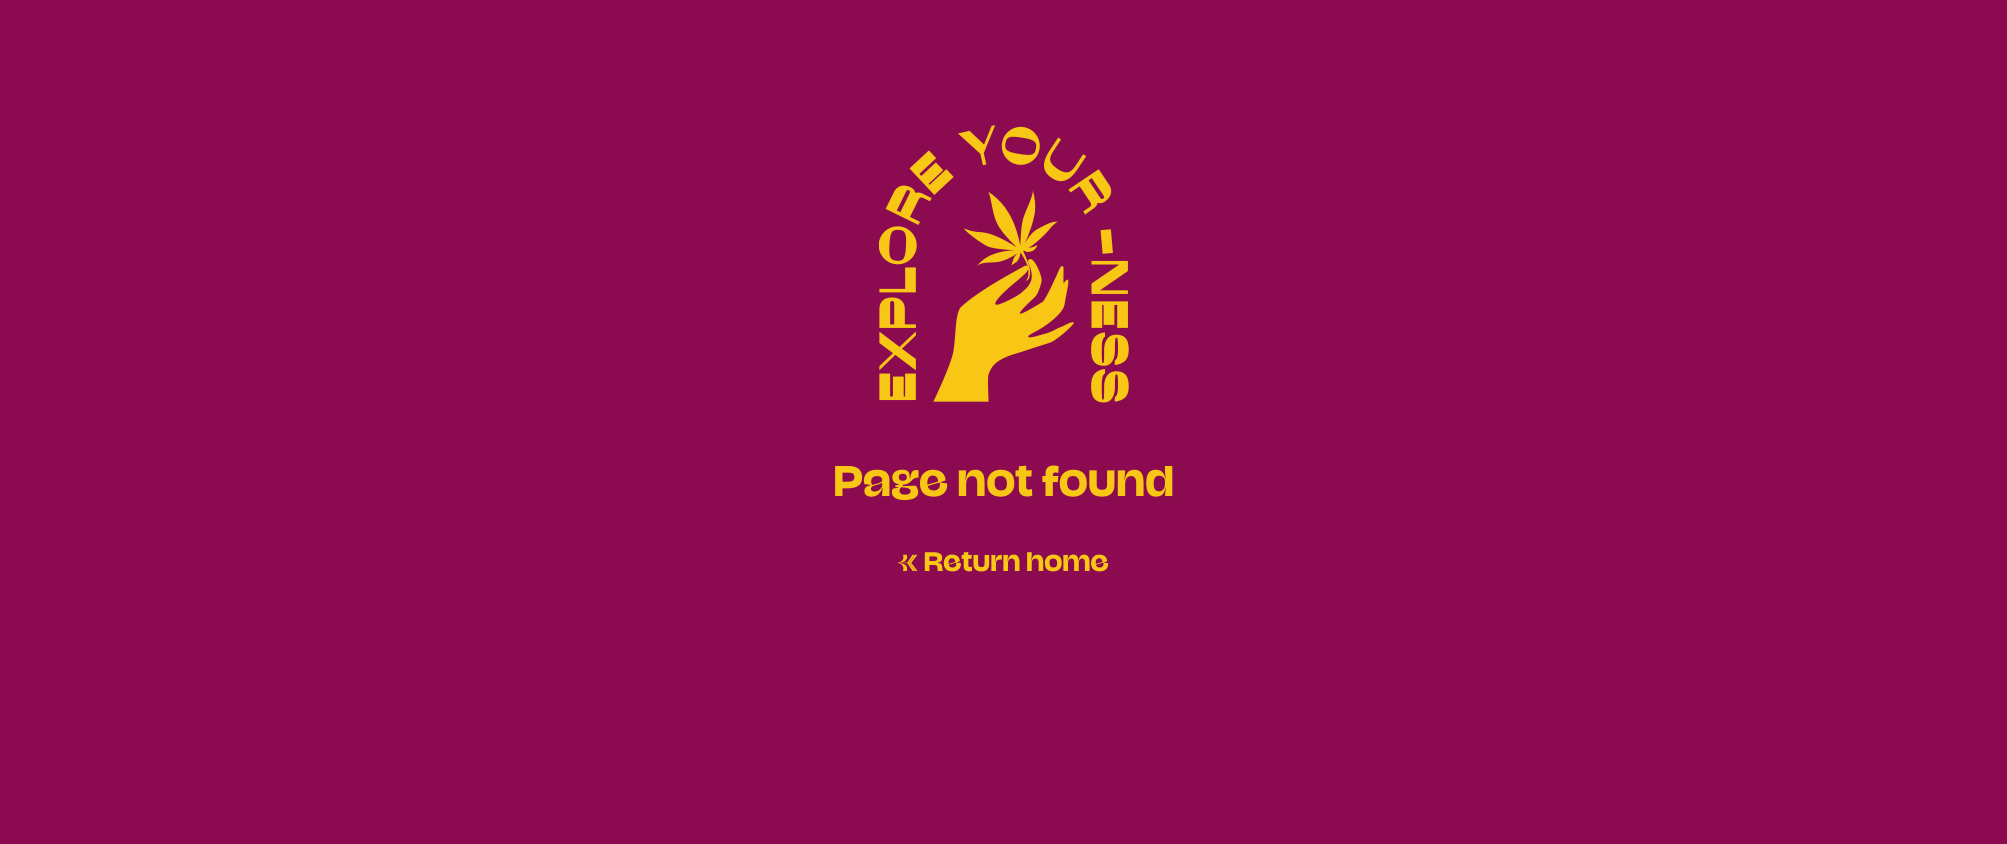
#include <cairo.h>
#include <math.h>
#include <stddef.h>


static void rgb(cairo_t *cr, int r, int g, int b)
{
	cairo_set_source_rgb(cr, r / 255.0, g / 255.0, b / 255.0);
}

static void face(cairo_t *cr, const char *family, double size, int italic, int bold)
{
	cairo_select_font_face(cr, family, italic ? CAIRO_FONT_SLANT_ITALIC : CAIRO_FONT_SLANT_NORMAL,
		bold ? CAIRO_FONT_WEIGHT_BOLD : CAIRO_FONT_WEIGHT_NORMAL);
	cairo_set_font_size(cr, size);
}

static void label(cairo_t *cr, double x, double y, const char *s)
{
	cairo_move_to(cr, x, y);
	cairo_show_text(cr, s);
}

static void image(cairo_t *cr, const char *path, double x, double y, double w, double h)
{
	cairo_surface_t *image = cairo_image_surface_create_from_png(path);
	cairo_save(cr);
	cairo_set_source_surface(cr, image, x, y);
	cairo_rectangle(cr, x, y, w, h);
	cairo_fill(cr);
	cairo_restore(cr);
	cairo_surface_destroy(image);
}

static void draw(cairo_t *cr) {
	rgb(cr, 140, 10, 80);
	cairo_paint(cr);
	image(cr, "image0.png", 879, 125, 250, 278);
	face(cr, "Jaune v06", 40, 0, 1);
	rgb(cr, 248, 199, 21);
	label(cr, 833, 496, "Page not found");
	face(cr, "Jaune v06", 25, 0, 1);
	label(cr, 898, 571, "← Return home");
}

int main(void) {
	cairo_surface_t *surface = cairo_image_surface_create(CAIRO_FORMAT_RGB24, 2007, 844);
	cairo_t *cr = cairo_create(surface);
	cairo_font_options_t *options = cairo_font_options_create();
	cairo_font_options_set_hint_metrics(options, CAIRO_HINT_METRICS_OFF);
	cairo_font_options_set_hint_style(options, CAIRO_HINT_STYLE_NONE);
	cairo_set_font_options(cr, options);
	cairo_set_miter_limit(cr, 4);
	draw(cr);
	cairo_surface_write_to_png(surface, "render.png");
	cairo_font_options_destroy(options);
	cairo_destroy(cr);
	cairo_surface_destroy(surface);
	return 0;
}
